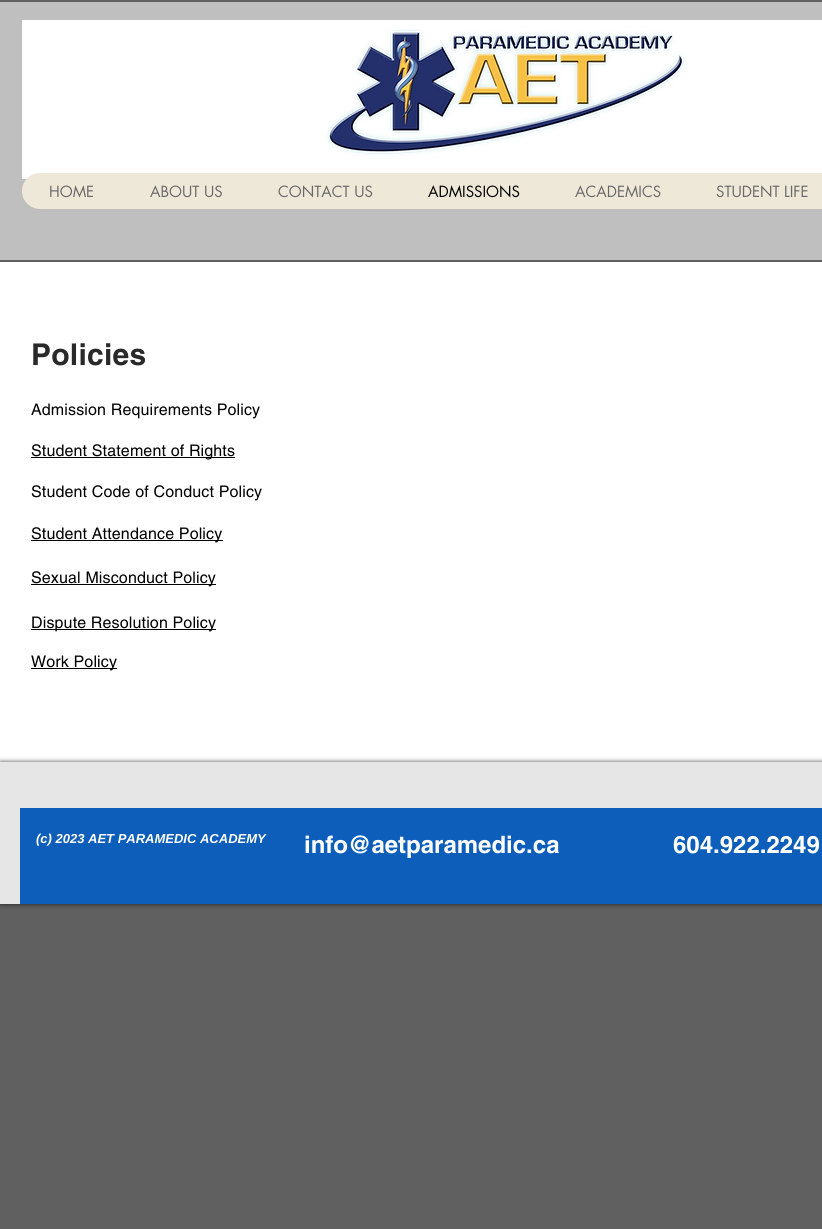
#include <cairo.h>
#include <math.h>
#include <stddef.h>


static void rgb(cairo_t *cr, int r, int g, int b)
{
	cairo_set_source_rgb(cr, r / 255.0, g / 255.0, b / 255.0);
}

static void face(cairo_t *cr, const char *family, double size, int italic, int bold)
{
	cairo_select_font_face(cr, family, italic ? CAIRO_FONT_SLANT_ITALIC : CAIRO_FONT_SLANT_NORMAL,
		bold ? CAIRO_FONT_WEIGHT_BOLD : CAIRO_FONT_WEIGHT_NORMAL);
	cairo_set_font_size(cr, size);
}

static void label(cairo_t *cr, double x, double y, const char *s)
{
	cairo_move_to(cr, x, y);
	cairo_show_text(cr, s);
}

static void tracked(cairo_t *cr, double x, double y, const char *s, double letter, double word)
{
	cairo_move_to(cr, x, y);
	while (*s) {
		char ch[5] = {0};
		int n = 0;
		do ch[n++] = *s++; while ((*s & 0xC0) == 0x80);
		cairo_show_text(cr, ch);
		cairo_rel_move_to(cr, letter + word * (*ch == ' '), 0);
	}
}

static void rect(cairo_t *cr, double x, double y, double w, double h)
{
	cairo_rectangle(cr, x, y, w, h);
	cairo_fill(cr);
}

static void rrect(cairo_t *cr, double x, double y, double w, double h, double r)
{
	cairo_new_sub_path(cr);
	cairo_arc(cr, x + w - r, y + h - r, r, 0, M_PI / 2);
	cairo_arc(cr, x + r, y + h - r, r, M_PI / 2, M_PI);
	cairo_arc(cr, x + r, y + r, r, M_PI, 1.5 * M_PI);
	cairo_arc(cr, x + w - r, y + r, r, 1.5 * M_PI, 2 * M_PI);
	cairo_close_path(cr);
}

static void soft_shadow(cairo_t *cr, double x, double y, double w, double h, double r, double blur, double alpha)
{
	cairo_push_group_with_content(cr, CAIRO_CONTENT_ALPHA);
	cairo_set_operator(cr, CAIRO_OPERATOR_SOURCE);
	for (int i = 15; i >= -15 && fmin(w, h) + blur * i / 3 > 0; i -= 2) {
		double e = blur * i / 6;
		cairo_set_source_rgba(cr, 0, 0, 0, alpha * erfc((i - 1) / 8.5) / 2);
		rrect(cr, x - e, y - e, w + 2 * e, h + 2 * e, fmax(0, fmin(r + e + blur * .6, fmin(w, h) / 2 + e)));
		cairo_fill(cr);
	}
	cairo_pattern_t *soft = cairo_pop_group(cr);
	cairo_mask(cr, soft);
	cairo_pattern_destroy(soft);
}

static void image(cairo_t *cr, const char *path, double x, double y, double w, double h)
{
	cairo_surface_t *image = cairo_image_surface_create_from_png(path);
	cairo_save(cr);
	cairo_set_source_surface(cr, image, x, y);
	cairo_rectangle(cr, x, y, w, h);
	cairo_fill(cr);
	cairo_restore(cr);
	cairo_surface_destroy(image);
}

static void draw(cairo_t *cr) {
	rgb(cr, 96, 96, 96);
	cairo_paint(cr);
	rgb(cr, 191, 191, 191);
	rect(cr, 0, 2, 822, 258);
	rgb(cr, 255, 255, 255);
	rect(cr, 22, 20, 800, 159);
	image(cr, "image0.png", 326, 28, 360, 128);
	rgb(cr, 238, 232, 216);
	rrect(cr, 22, 173, 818, 36, 18);
	cairo_fill(cr);
	face(cr, "futura", 15, 0, 0);
	rgb(cr, 105, 105, 105);
	label(cr, 49, 197, "HOME");
	label(cr, 150, 197, "ABOUT US");
	label(cr, 278, 197, "CONTACT US");
	rgb(cr, 0, 0, 0);
	label(cr, 428, 197, "ADMISSIONS");
	rgb(cr, 105, 105, 105);
	label(cr, 575, 197, "ACADEMICS");
	label(cr, 716, 197, "STUDENT LIFE");
	rgb(cr, 255, 255, 255);
	rect(cr, 0, 262, 822, 500);
	face(cr, "helvetica", 30, 0, 1);
	rgb(cr, 41, 41, 41);
	tracked(cr, 31, 365, "Policies", 0.25, 0);
	face(cr, "helvetica", 16, 0, 0);
	rgb(cr, 0, 0, 0);
	tracked(cr, 31, 415, "Admission Requirements Policy", 0.15, 0);
	rect(cr, 31, 457, 204, 1);
	tracked(cr, 31, 456, "Student Statement of Rights", 0.15, 0);
	tracked(cr, 31, 497, "Student Code of Conduct Policy", 0.15, 0);
	rect(cr, 31, 540, 192, 1);
	tracked(cr, 31, 539, "Student Attendance Policy", 0.15, 0);
	rect(cr, 31, 584, 185, 1);
	tracked(cr, 31, 583, "Sexual Misconduct Policy", 0.15, 0);
	rect(cr, 31, 629, 185, 1);
	tracked(cr, 31, 628, "Dispute Resolution Policy", 0.15, 0);
	rect(cr, 31, 668, 86, 1);
	tracked(cr, 31, 667, "Work Policy", 0.15, 0);
	rgb(cr, 0, 0, 0);
	soft_shadow(cr, 0, 762, 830, 142, 0, 2.5, 0.7);
	rgb(cr, 230, 230, 230);
	rect(cr, 0, 762, 822, 142);
	rgb(cr, 13, 94, 186);
	rect(cr, 20, 808, 802, 96);
	face(cr, "Liberation Sans", 13, 1, 1);
	rgb(cr, 255, 255, 255);
	label(cr, 36, 843, "(c) 2023 AET PARAMEDIC ACADEMY");
	face(cr, "helvetica", 24, 0, 1);
	label(cr, 304, 853, "info@aetparamedic.ca");
	label(cr, 673, 853, "604.922.2249");
}

int main(void) {
	cairo_surface_t *surface = cairo_image_surface_create(CAIRO_FORMAT_RGB24, 822, 1229);
	cairo_t *cr = cairo_create(surface);
	cairo_font_options_t *options = cairo_font_options_create();
	cairo_font_options_set_hint_metrics(options, CAIRO_HINT_METRICS_OFF);
	cairo_font_options_set_hint_style(options, CAIRO_HINT_STYLE_NONE);
	cairo_set_font_options(cr, options);
	cairo_set_miter_limit(cr, 4);
	draw(cr);
	cairo_surface_write_to_png(surface, "render.png");
	cairo_font_options_destroy(options);
	cairo_destroy(cr);
	cairo_surface_destroy(surface);
	return 0;
}
